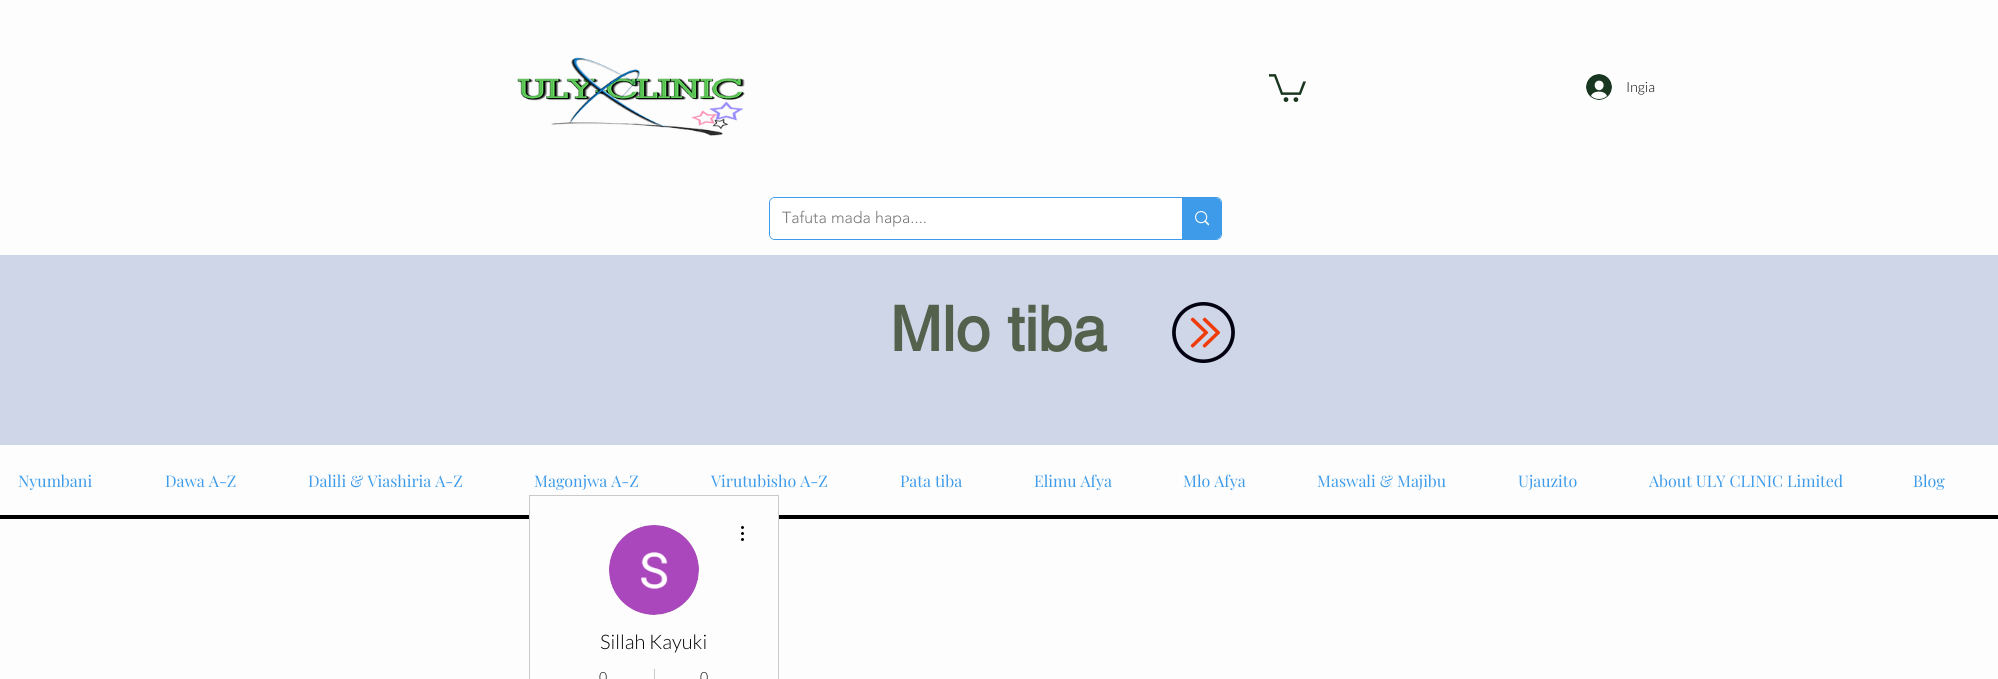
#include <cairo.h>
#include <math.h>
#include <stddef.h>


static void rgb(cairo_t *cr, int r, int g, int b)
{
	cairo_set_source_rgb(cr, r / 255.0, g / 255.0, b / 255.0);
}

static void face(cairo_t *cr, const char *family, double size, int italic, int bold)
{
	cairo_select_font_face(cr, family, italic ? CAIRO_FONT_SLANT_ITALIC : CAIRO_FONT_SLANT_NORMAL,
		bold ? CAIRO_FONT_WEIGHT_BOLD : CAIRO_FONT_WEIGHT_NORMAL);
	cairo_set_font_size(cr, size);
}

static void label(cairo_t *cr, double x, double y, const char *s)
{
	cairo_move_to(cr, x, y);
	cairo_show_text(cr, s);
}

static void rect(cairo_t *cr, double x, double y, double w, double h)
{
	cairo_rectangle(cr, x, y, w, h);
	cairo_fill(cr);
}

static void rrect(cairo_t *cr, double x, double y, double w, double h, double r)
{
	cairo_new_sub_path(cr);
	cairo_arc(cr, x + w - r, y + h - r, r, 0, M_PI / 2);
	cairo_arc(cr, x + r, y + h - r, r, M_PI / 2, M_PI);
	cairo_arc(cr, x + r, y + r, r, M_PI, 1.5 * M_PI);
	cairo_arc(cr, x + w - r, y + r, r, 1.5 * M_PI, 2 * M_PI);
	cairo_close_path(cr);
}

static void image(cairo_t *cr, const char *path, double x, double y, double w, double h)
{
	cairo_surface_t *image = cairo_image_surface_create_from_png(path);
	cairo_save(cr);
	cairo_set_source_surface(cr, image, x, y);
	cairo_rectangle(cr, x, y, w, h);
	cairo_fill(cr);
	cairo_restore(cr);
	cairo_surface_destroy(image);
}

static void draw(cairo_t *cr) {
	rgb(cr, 253, 253, 253);
	cairo_paint(cr);
	image(cr, "image0.png", 517, 57, 228, 79);
	image(cr, "image1.png", 1269, 74, 37, 28);
	image(cr, "image2.png", 1586, 74, 26, 26);
	face(cr, "Lato Light", 14, 0, 0);
	rgb(cr, 0, 0, 0);
	label(cr, 1626, 92, "Ingia");
	rrect(cr, 769.5, 197.5, 452, 42, 5.5);
	rgb(cr, 61, 155, 233);
	cairo_set_line_width(cr, 1);
	cairo_stroke(cr);
	rgb(cr, 255, 255, 255);
	rrect(cr, 770, 198, 451, 41, 5);
	cairo_fill(cr);
	face(cr, "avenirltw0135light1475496 Light", 16, 0, 0);
	rgb(cr, 120, 120, 120);
	label(cr, 782, 223, "Tafuta mada hapa....");
	rgb(cr, 61, 155, 233);
	cairo_new_path(cr);
	cairo_move_to(cr, 1182, 198);
	cairo_line_to(cr, 1216, 198);
	cairo_curve_to(cr, 1219, 198, 1221, 200, 1221, 203);
	cairo_line_to(cr, 1221, 234);
	cairo_curve_to(cr, 1221, 237, 1219, 239, 1216, 239);
	cairo_line_to(cr, 1182, 239);
	cairo_close_path(cr);
	cairo_fill(cr);
	image(cr, "image3.png", 1195, 211, 14, 15);
	rgb(cr, 207, 214, 232);
	rect(cr, 0, 255, 1998, 190);
	face(cr, "helvetica", 62, 0, 1);
	rgb(cr, 83, 97, 77);
	label(cr, 890, 351, "Mlo tiba");
	image(cr, "image4.png", 1172, 302, 63, 61);
	face(cr, "Playfair Display", 16, 0, 0);
	rgb(cr, 61, 155, 233);
	label(cr, 18, 487, "Nyumbani");
	label(cr, 165, 487, "Dawa A-Z");
	label(cr, 308, 487, "Dalili & Viashiria A-Z");
	label(cr, 534, 487, "Magonjwa A-Z");
	label(cr, 711, 487, "Virutubisho A-Z");
	label(cr, 900, 487, "Pata tiba");
	label(cr, 1034, 487, "Elimu Afya");
	label(cr, 1183, 487, "Mlo Afya");
	label(cr, 1317, 487, "Maswali & Majibu");
	label(cr, 1518, 487, "Ujauzito");
	label(cr, 1649, 487, "About ULY CLINIC Limited");
	label(cr, 1913, 487, "Blog");
	rgb(cr, 0, 0, 0);
	rect(cr, 0, 515, 1998, 4);
	rgb(cr, 253, 253, 253);
	rect(cr, 530, 515, 248, 4);
	cairo_rectangle(cr, 529.5, 495.5, 249, 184);
	rgb(cr, 202, 202, 202);
	cairo_stroke(cr);
	rgb(cr, 216, 216, 216);
	cairo_arc(cr, 654, 570, 45, 0, 2 * M_PI);
	cairo_fill(cr);
	image(cr, "image5.png", 609, 525, 90, 90);
	image(cr, "image6.png", 741, 526, 3, 15);
	face(cr, "Lato Light", 20, 0, 0);
	rgb(cr, 0, 0, 0);
	label(cr, 600, 649, "Sillah Kayuki");
	face(cr, "Lato Light", 14, 0, 0);
	label(cr, 599, 682, "0");
	rgb(cr, 202, 202, 202);
	rect(cr, 654, 669, 1, 10);
	rgb(cr, 0, 0, 0);
	label(cr, 700, 682, "0");
}

int main(void) {
	cairo_surface_t *surface = cairo_image_surface_create(CAIRO_FORMAT_RGB24, 1998, 679);
	cairo_t *cr = cairo_create(surface);
	cairo_font_options_t *options = cairo_font_options_create();
	cairo_font_options_set_hint_metrics(options, CAIRO_HINT_METRICS_OFF);
	cairo_font_options_set_hint_style(options, CAIRO_HINT_STYLE_NONE);
	cairo_set_font_options(cr, options);
	cairo_set_miter_limit(cr, 4);
	draw(cr);
	cairo_surface_write_to_png(surface, "render.png");
	cairo_font_options_destroy(options);
	cairo_destroy(cr);
	cairo_surface_destroy(surface);
	return 0;
}
